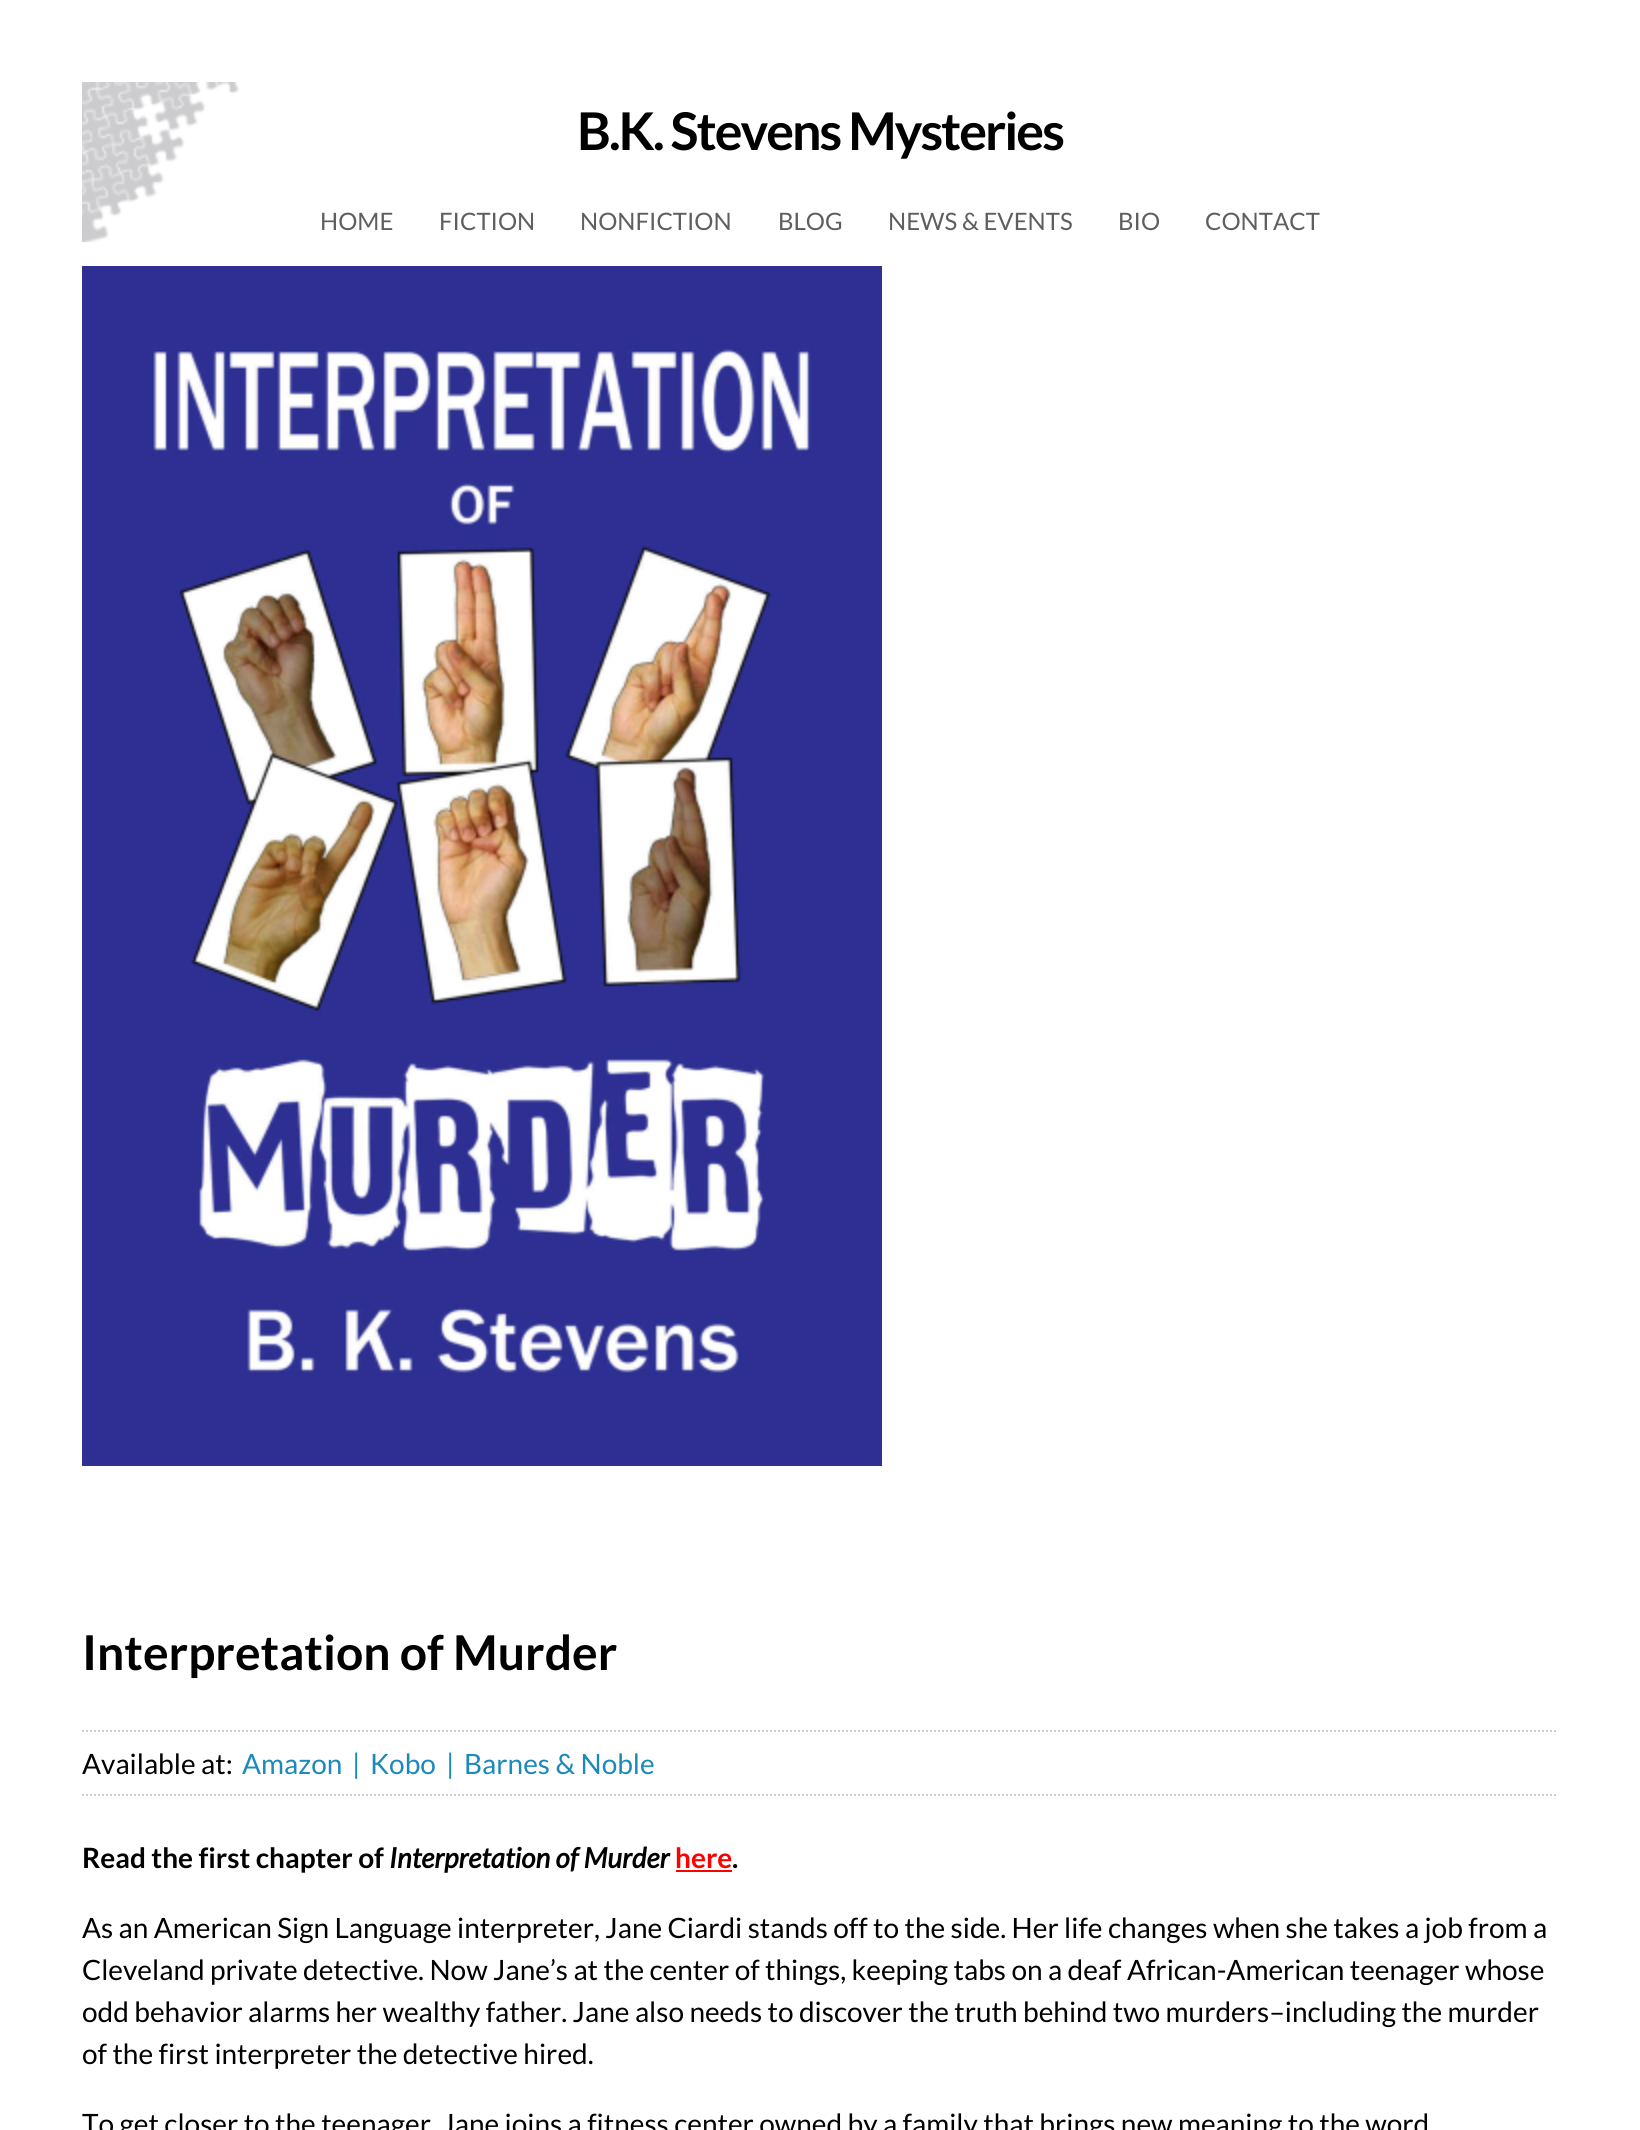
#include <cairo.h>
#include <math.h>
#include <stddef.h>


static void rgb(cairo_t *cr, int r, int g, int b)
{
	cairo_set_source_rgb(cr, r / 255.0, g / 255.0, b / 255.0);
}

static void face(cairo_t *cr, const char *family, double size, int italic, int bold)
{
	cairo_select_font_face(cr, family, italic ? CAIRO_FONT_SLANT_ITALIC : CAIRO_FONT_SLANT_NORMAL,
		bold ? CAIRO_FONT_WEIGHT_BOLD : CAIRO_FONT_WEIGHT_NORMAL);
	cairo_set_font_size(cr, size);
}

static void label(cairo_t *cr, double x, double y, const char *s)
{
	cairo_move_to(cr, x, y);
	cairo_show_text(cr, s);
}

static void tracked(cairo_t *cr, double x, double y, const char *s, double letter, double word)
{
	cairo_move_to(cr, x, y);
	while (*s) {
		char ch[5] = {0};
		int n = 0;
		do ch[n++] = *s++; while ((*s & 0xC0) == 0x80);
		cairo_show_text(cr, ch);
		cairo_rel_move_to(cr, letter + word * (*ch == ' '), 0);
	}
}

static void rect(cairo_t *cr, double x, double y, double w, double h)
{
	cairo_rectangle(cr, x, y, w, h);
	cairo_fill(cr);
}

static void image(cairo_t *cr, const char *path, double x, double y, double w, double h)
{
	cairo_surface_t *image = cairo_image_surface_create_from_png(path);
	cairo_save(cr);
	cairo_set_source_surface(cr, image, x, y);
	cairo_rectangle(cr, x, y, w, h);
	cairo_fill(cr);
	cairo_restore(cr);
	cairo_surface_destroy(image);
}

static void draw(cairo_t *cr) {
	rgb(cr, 255, 255, 255);
	cairo_paint(cr);
	image(cr, "image0.png", 82, 82, 158, 160);
	face(cr, "Lato", 52, 0, 1);
	rgb(cr, 0, 0, 0);
	tracked(cr, 577, 150, "B.K. Stevens Mysteries", -2, 0);
	face(cr, "Lato", 24, 0, 0);
	rgb(cr, 94, 94, 94);
	label(cr, 320, 230, "HOME");
	label(cr, 439, 230, "FICTION");
	label(cr, 580, 230, "NONFICTION");
	label(cr, 778, 230, "BLOG");
	label(cr, 888, 230, "NEWS & EVENTS");
	label(cr, 1118, 230, "BIO");
	label(cr, 1205, 230, "CONTACT");
	image(cr, "image1.png", 82, 266, 800, 1200);
	face(cr, "Lato", 48, 0, 1);
	rgb(cr, 0, 0, 0);
	label(cr, 82, 1670, "Interpretation of Murder");
	cairo_new_path(cr);
	cairo_move_to(cr, 82, 1731);
	cairo_line_to(cr, 1558, 1731);
	rgb(cr, 204, 204, 204);
	cairo_set_dash(cr, (double[]){2, 2}, 2, 0);
	cairo_stroke(cr);
	cairo_new_path(cr);
	cairo_move_to(cr, 82, 1795);
	cairo_line_to(cr, 1558, 1795);
	cairo_stroke(cr);
	face(cr, "Lato", 28, 0, 0);
	rgb(cr, 0, 0, 0);
	label(cr, 82, 1774, "Available at:");
	rgb(cr, 27, 137, 187);
	label(cr, 242, 1774, "Amazon");
	label(cr, 352, 1774, "|");
	label(cr, 370, 1774, "Kobo");
	label(cr, 446, 1774, "|");
	label(cr, 464, 1774, "Barnes & Noble");
	face(cr, "Lato", 28, 0, 1);
	rgb(cr, 0, 0, 0);
	label(cr, 82, 1868, "Read the first chapter of");
	face(cr, "Lato", 28, 1, 1);
	label(cr, 389, 1868, "Interpretation of Murder");
	face(cr, "Lato", 28, 0, 1);
	rgb(cr, 255, 0, 0);
	label(cr, 675, 1868, "here");
	rgb(cr, 0, 0, 0);
	label(cr, 732, 1868, ".");
	rgb(cr, 255, 0, 0);
	rect(cr, 676, 1870, 56, 2);
	face(cr, "Lato", 28, 0, 0);
	rgb(cr, 0, 0, 0);
	label(cr, 82, 1938, "As an American Sign Language interpreter, Jane Ciardi stands off to the side. Her life changes when she takes a job from a");
	label(cr, 82, 1980, "Cleveland private detective. Now Jane’s at the center of things, keeping tabs on a deaf African-American teenager whose");
	label(cr, 82, 2022, "odd behavior alarms her wealthy father. Jane also needs to discover the truth behind two murders–including the murder");
	label(cr, 82, 2064, "of the first interpreter the detective hired.");
	label(cr, 82, 2134, "To get closer to the teenager, Jane joins a fitness center owned by a family that brings new meaning to the word");
}

int main(void) {
	cairo_surface_t *surface = cairo_image_surface_create(CAIRO_FORMAT_RGB24, 1640, 2130);
	cairo_t *cr = cairo_create(surface);
	cairo_font_options_t *options = cairo_font_options_create();
	cairo_font_options_set_hint_metrics(options, CAIRO_HINT_METRICS_OFF);
	cairo_font_options_set_hint_style(options, CAIRO_HINT_STYLE_NONE);
	cairo_set_font_options(cr, options);
	cairo_set_miter_limit(cr, 4);
	draw(cr);
	cairo_surface_write_to_png(surface, "render.png");
	cairo_font_options_destroy(options);
	cairo_destroy(cr);
	cairo_surface_destroy(surface);
	return 0;
}
